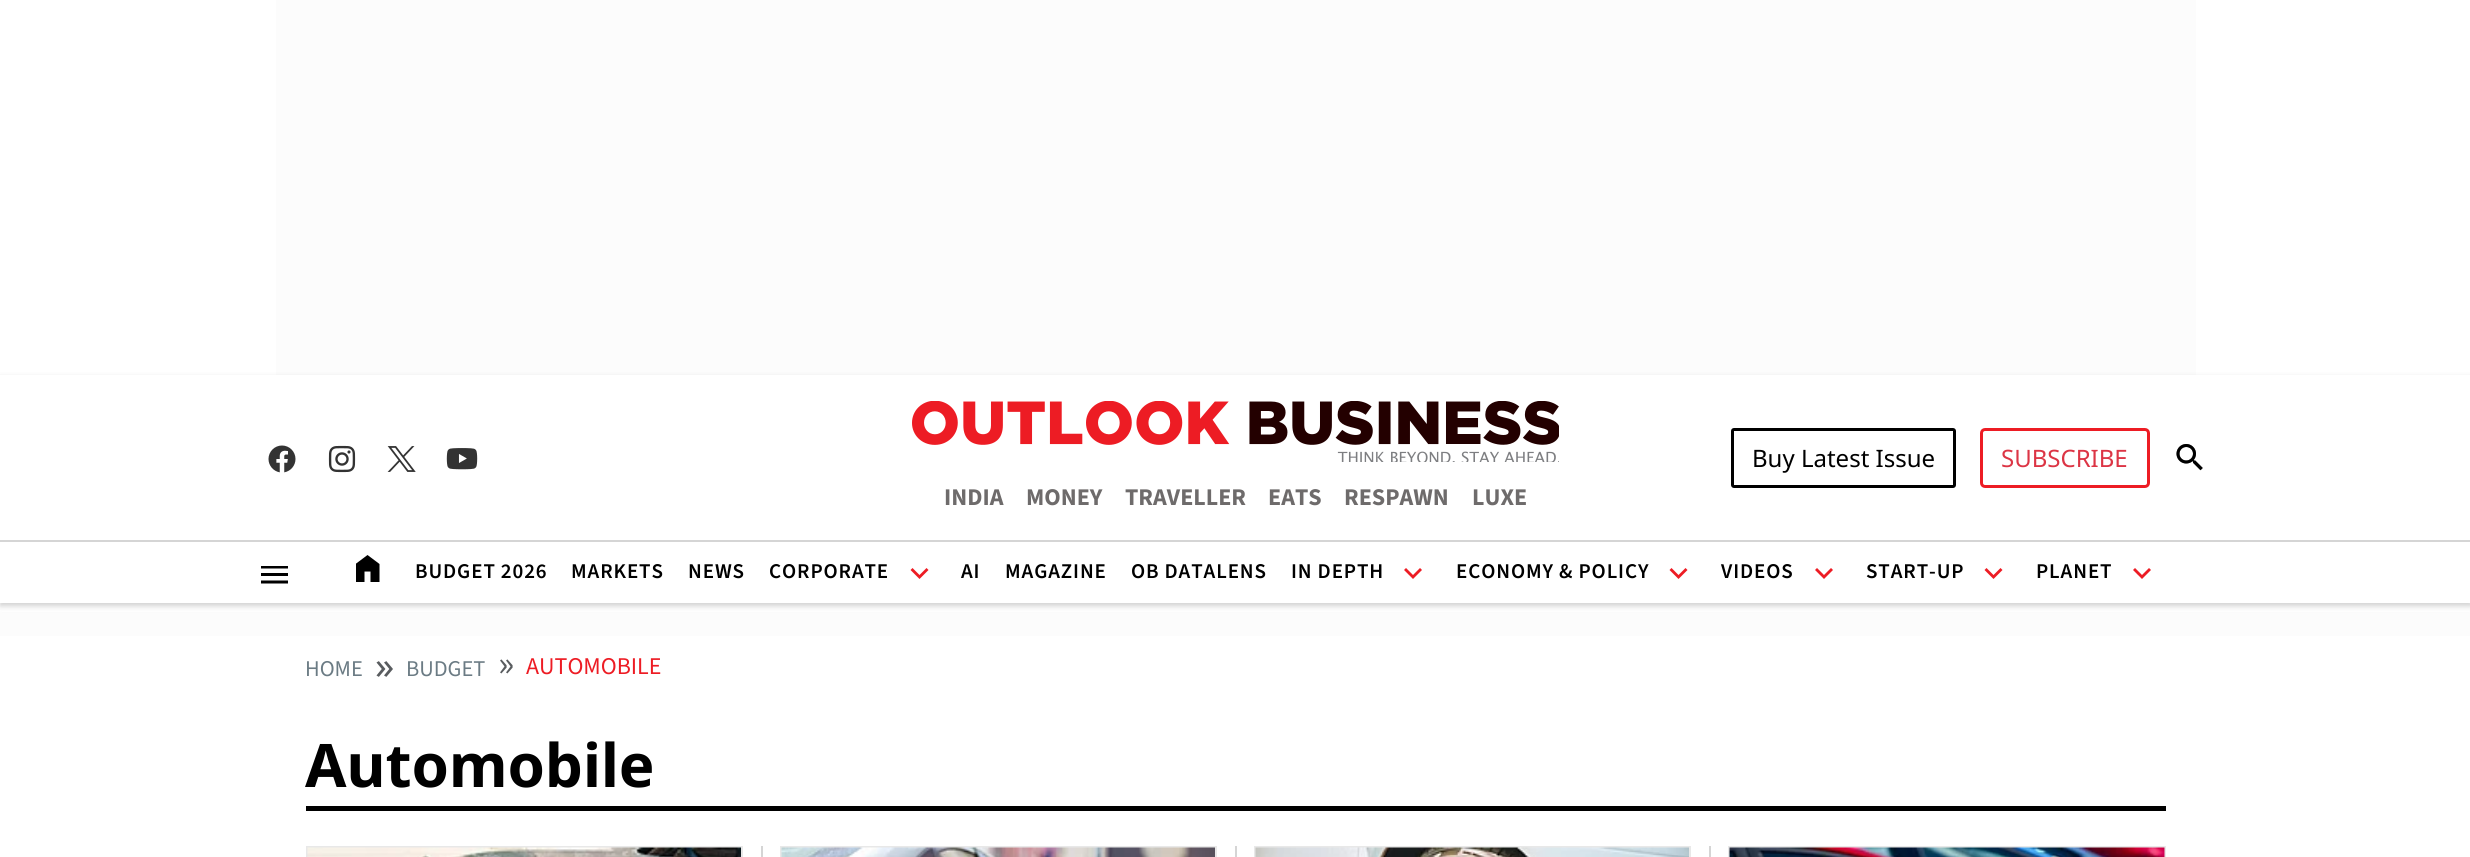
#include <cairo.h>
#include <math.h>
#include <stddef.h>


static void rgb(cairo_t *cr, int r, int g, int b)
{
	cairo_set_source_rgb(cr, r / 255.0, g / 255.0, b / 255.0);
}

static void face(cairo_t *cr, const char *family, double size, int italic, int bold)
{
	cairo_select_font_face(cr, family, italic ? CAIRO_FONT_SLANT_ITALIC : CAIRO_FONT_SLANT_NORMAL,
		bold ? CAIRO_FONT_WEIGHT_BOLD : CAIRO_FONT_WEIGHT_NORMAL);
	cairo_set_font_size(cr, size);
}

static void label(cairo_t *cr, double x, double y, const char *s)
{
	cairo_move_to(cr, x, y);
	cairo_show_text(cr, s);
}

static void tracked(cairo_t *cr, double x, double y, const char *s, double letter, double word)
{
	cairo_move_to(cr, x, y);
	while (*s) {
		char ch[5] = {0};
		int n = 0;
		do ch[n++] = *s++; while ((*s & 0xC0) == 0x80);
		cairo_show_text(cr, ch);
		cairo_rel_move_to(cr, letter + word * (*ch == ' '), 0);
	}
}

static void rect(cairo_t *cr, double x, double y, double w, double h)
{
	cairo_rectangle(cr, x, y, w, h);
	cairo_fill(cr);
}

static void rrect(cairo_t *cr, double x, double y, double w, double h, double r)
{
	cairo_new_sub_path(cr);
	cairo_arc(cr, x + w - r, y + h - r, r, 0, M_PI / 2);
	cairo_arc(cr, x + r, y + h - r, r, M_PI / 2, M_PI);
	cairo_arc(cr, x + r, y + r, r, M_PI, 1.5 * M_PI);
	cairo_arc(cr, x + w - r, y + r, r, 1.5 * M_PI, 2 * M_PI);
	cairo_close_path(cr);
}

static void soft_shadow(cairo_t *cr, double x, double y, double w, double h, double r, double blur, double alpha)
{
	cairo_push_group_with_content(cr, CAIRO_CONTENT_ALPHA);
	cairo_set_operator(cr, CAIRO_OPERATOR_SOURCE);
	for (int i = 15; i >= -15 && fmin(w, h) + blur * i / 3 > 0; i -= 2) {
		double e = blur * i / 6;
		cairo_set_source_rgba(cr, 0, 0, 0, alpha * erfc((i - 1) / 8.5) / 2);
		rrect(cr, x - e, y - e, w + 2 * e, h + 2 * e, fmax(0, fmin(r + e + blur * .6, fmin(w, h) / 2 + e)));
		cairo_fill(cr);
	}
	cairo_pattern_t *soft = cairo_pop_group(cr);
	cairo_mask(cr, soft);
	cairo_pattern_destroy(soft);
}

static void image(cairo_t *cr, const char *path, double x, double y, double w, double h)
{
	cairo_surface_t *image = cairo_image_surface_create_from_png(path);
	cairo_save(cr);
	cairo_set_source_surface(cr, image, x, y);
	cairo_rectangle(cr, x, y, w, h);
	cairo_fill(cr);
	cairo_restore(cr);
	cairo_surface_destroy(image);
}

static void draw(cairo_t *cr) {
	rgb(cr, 255, 255, 255);
	cairo_paint(cr);
	rgb(cr, 252, 252, 252);
	rect(cr, 276, 0, 1920, 375);
	rect(cr, 0, 612, 2470, 24);
	cairo_save(cr);
	cairo_set_fill_rule(cr, CAIRO_FILL_RULE_EVEN_ODD);
	cairo_new_path(cr);
	cairo_move_to(cr, 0, 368);
	cairo_line_to(cr, 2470, 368);
	cairo_line_to(cr, 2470, 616);
	cairo_line_to(cr, 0, 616);
	cairo_close_path(cr);
	cairo_move_to(cr, 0, 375);
	cairo_line_to(cr, 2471, 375);
	cairo_line_to(cr, 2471, 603);
	cairo_line_to(cr, 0, 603);
	cairo_close_path(cr);
	cairo_clip(cr);
	rgb(cr, 17, 17, 17);
	soft_shadow(cr, 0, 378, 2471, 228, 0, 3, 0.2);
	cairo_restore(cr);
	image(cr, "image0.png", 268, 445, 28, 28);
	image(cr, "image1.png", 328, 445, 28, 28);
	image(cr, "image2.png", 387, 446, 29, 26);
	image(cr, "image3.png", 446, 448, 32, 22);
	rrect(cr, 1732.5, 429.5, 222, 57, 1.5);
	rgb(cr, 0, 0, 0);
	cairo_set_line_width(cr, 3);
	cairo_stroke(cr);
	face(cr, "Noto Sans", 24, 0, 0);
	label(cr, 1752, 467, "Buy Latest Issue");
	rrect(cr, 1981.5, 429.5, 167, 57, 3.5);
	rgb(cr, 237, 28, 36);
	cairo_stroke(cr);
	rgb(cr, 220, 53, 69);
	label(cr, 2001, 467, "SUBSCRIBE");
	image(cr, "image4.png", 2176, 444, 27, 27);
	image(cr, "image5.png", 912, 401, 647, 61);
	face(cr, "Source Sans 3", 24, 0, 1);
	rgb(cr, 110, 107, 107);
	label(cr, 944, 505, "INDIA");
	label(cr, 1026, 505, "MONEY");
	label(cr, 1125, 505, "TRAVELLER");
	label(cr, 1268, 505, "EATS");
	label(cr, 1344, 505, "RESPAWN");
	label(cr, 1472, 505, "LUXE");
	rgb(cr, 213, 213, 213);
	rect(cr, 0, 540, 2470, 2);
	image(cr, "image6.png", 261, 566, 27, 18);
	cairo_save(cr);
	cairo_rectangle(cr, 356, 555, 24, 27);
	cairo_clip(cr);
	rgb(cr, 0, 0, 0);
	cairo_new_path(cr);
	cairo_move_to(cr, 355.5, 582);
	cairo_line_to(cr, 355.5, 564);
	cairo_line_to(cr, 367.5, 555);
	cairo_line_to(cr, 379.5, 564);
	cairo_line_to(cr, 379.5, 582);
	cairo_line_to(cr, 370.5, 582);
	cairo_line_to(cr, 370.5, 571.5);
	cairo_line_to(cr, 364.5, 571.5);
	cairo_line_to(cr, 364.5, 582);
	cairo_close_path(cr);
	cairo_fill(cr);
	cairo_restore(cr);
	face(cr, "Source Sans 3 SemiBold", 21, 0, 0);
	rgb(cr, 0, 0, 0);
	tracked(cr, 415, 578, "BUDGET 2026", 0.9, 0);
	tracked(cr, 571, 578, "MARKETS", 0.9, 0);
	tracked(cr, 688, 578, "NEWS", 0.9, 0);
	tracked(cr, 769, 578, "CORPORATE", 0.9, 0);
	rgb(cr, 237, 28, 36);
	cairo_new_path(cr);
	cairo_move_to(cr, 912.5, 568);
	cairo_line_to(cr, 919.5, 575);
	cairo_line_to(cr, 926.5, 568);
	cairo_line_to(cr, 928.5, 570);
	cairo_line_to(cr, 919.5, 579);
	cairo_line_to(cr, 910.5, 570);
	cairo_close_path(cr);
	cairo_fill(cr);
	rgb(cr, 0, 0, 0);
	tracked(cr, 961, 578, "AI", 0.9, 0);
	tracked(cr, 1005, 578, "MAGAZINE", 0.9, 0);
	tracked(cr, 1131, 578, "OB DATALENS", 0.9, 0);
	tracked(cr, 1291, 578, "IN DEPTH", 0.9, 0);
	rgb(cr, 237, 28, 36);
	cairo_new_path(cr);
	cairo_move_to(cr, 1406, 568);
	cairo_line_to(cr, 1413, 575);
	cairo_line_to(cr, 1420, 568);
	cairo_line_to(cr, 1422, 570);
	cairo_line_to(cr, 1413, 579);
	cairo_line_to(cr, 1404, 570);
	cairo_close_path(cr);
	cairo_fill(cr);
	rgb(cr, 0, 0, 0);
	tracked(cr, 1456, 578, "ECONOMY & POLICY", 0.9, 0);
	rgb(cr, 237, 28, 36);
	cairo_new_path(cr);
	cairo_move_to(cr, 1671.5, 568);
	cairo_line_to(cr, 1678.5, 575);
	cairo_line_to(cr, 1685.5, 568);
	cairo_line_to(cr, 1687.5, 570);
	cairo_line_to(cr, 1678.5, 579);
	cairo_line_to(cr, 1669.5, 570);
	cairo_close_path(cr);
	cairo_fill(cr);
	rgb(cr, 0, 0, 0);
	tracked(cr, 1721, 578, "VIDEOS", 0.9, 0);
	rgb(cr, 237, 28, 36);
	cairo_new_path(cr);
	cairo_move_to(cr, 1817, 568);
	cairo_line_to(cr, 1824, 575);
	cairo_line_to(cr, 1831, 568);
	cairo_line_to(cr, 1833, 570);
	cairo_line_to(cr, 1824, 579);
	cairo_line_to(cr, 1815, 570);
	cairo_close_path(cr);
	cairo_fill(cr);
	rgb(cr, 0, 0, 0);
	tracked(cr, 1866, 578, "START-UP", 0.9, 0);
	rgb(cr, 237, 28, 36);
	cairo_new_path(cr);
	cairo_move_to(cr, 1986.5, 568);
	cairo_line_to(cr, 1993.5, 575);
	cairo_line_to(cr, 2000.5, 568);
	cairo_line_to(cr, 2002.5, 570);
	cairo_line_to(cr, 1993.5, 579);
	cairo_line_to(cr, 1984.5, 570);
	cairo_close_path(cr);
	cairo_fill(cr);
	rgb(cr, 0, 0, 0);
	tracked(cr, 2036, 578, "PLANET", 0.9, 0);
	rgb(cr, 237, 28, 36);
	cairo_new_path(cr);
	cairo_move_to(cr, 2135, 568);
	cairo_line_to(cr, 2142, 575);
	cairo_line_to(cr, 2149, 568);
	cairo_line_to(cr, 2151, 570);
	cairo_line_to(cr, 2142, 579);
	cairo_line_to(cr, 2133, 570);
	cairo_close_path(cr);
	cairo_fill(cr);
	face(cr, "Source Sans 3", 22.5, 0, 0);
	rgb(cr, 107, 123, 132);
	label(cr, 305, 676, "HOME");
	face(cr, "Noto Sans", 38, 0, 0);
	rgb(cr, 89, 92, 95);
	label(cr, 375, 679, "»");
	face(cr, "Source Sans 3", 22.5, 0, 0);
	rgb(cr, 107, 123, 132);
	label(cr, 406, 676, "BUDGET");
	face(cr, "Source Sans 3", 38, 0, 0);
	rgb(cr, 89, 92, 95);
	label(cr, 498, 676, "»");
	face(cr, "Source Sans 3", 24, 0, 0);
	rgb(cr, 237, 28, 36);
	label(cr, 526, 674, "AUTOMOBILE");
	rgb(cr, 0, 0, 0);
	rect(cr, 306, 806, 1860, 5);
	face(cr, "Noto Sans", 60, 0, 1);
	label(cr, 305, 787, "Automobile");
	rgb(cr, 213, 213, 213);
	rect(cr, 761, 846, 2, 11);
	cairo_rectangle(cr, 307, 847, 435, 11);
	rgb(cr, 232, 232, 232);
	cairo_set_line_width(cr, 2);
	cairo_stroke(cr);
	image(cr, "image7.png", 307, 847, 434, 10);
	rgb(cr, 213, 213, 213);
	rect(cr, 1235, 846, 2, 11);
	cairo_rectangle(cr, 781, 847, 435, 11);
	rgb(cr, 232, 232, 232);
	cairo_stroke(cr);
	image(cr, "image8.png", 781, 847, 434, 10);
	rgb(cr, 213, 213, 213);
	rect(cr, 1709, 846, 2, 11);
	cairo_rectangle(cr, 1255, 847, 435, 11);
	rgb(cr, 232, 232, 232);
	cairo_stroke(cr);
	image(cr, "image9.png", 1255, 847, 434, 10);
	cairo_rectangle(cr, 1729, 847, 436, 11);
	cairo_stroke(cr);
	image(cr, "image10.png", 1729, 847, 436, 10);
}

int main(void) {
	cairo_surface_t *surface = cairo_image_surface_create(CAIRO_FORMAT_RGB24, 2470, 857);
	cairo_t *cr = cairo_create(surface);
	cairo_font_options_t *options = cairo_font_options_create();
	cairo_font_options_set_hint_metrics(options, CAIRO_HINT_METRICS_OFF);
	cairo_font_options_set_hint_style(options, CAIRO_HINT_STYLE_NONE);
	cairo_set_font_options(cr, options);
	cairo_set_miter_limit(cr, 4);
	draw(cr);
	cairo_surface_write_to_png(surface, "render.png");
	cairo_font_options_destroy(options);
	cairo_destroy(cr);
	cairo_surface_destroy(surface);
	return 0;
}
